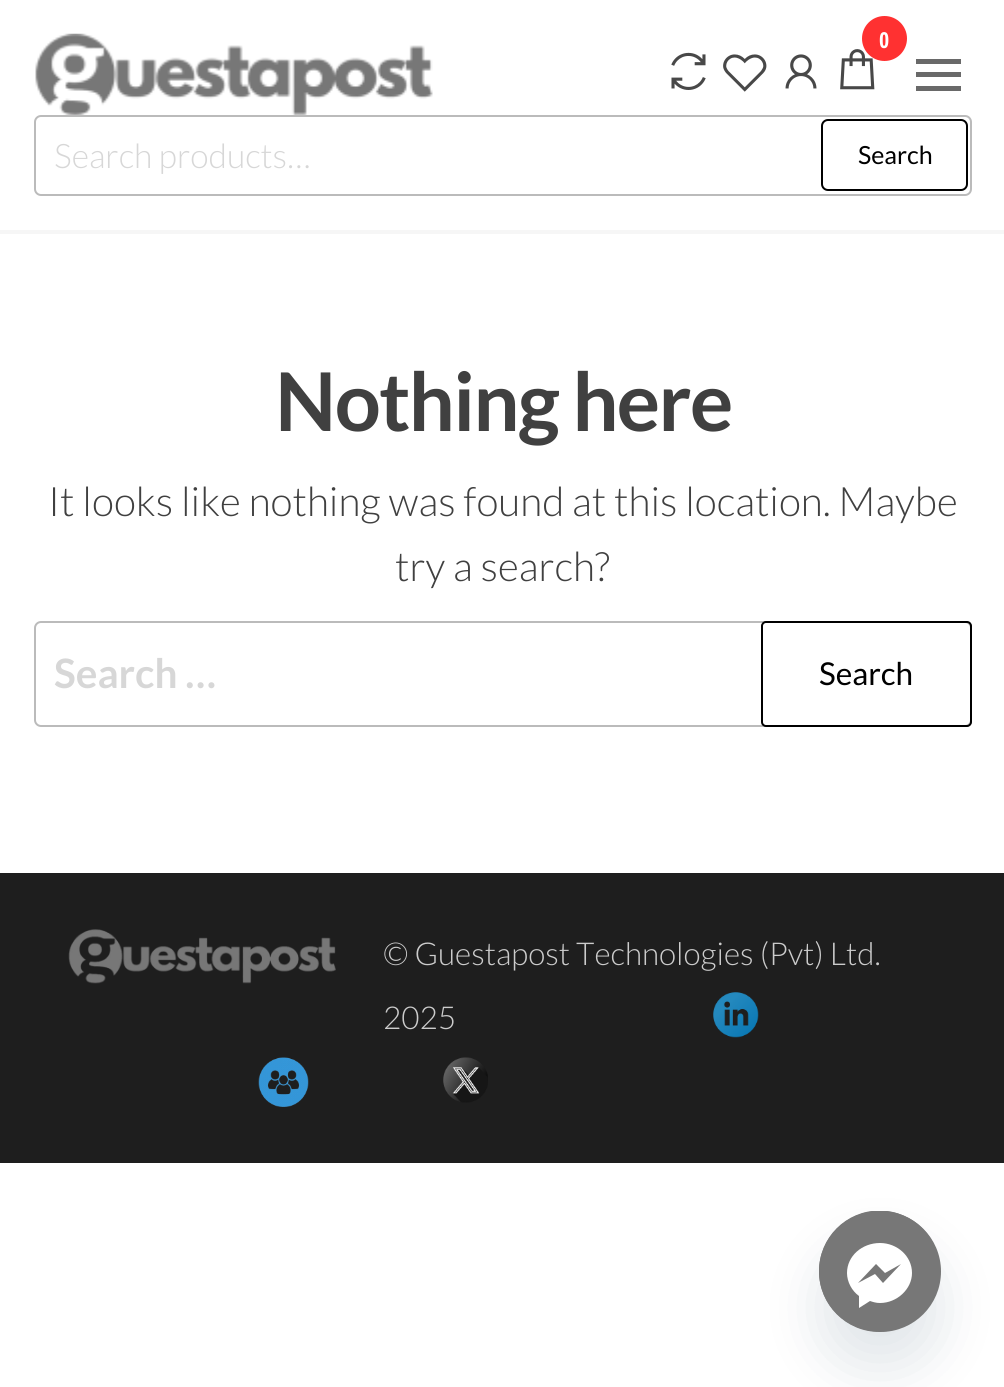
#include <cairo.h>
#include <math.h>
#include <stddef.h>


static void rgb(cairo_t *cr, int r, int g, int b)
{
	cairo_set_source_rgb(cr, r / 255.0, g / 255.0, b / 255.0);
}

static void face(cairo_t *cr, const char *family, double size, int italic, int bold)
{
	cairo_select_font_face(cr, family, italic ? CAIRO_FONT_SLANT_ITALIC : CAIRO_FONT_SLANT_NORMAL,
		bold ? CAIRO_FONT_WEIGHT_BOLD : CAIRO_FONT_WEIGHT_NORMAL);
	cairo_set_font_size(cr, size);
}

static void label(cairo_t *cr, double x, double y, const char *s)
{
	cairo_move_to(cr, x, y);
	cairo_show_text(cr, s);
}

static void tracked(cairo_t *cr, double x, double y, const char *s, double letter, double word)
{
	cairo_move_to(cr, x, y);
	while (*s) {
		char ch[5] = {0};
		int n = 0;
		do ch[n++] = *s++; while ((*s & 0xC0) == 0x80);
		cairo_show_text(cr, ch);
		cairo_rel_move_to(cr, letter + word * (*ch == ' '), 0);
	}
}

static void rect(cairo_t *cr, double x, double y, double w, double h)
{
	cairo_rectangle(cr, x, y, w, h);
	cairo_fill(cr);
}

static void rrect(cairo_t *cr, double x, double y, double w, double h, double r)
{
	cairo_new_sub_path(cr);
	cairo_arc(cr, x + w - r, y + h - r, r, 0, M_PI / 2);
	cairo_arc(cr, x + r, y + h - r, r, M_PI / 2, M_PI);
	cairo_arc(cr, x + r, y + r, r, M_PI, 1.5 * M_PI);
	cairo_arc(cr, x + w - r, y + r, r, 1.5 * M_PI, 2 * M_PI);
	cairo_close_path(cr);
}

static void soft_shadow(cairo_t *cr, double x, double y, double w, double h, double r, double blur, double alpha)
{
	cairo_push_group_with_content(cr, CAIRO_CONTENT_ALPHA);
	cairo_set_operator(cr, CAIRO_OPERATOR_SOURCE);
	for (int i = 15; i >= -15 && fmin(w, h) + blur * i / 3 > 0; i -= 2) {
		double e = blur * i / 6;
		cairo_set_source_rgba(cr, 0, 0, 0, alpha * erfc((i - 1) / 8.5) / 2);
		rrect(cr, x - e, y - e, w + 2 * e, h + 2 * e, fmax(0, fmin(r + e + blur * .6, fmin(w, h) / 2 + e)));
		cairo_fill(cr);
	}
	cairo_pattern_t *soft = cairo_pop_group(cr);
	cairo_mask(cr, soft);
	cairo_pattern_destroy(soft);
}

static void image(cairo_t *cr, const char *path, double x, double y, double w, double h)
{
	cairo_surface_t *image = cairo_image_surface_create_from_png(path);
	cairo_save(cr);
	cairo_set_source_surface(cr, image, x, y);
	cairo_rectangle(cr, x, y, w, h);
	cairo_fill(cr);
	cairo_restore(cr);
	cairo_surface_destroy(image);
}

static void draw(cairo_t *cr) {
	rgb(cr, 255, 255, 255);
	cairo_paint(cr);
	image(cr, "image0.png", 35, 33, 398, 82);
	image(cr, "image1.png", 840, 49, 35, 41);
	rgb(cr, 255, 49, 49);
	cairo_arc(cr, 884.5, 38.5, 22.5, 0, 2 * M_PI);
	cairo_fill(cr);
	face(cr, "Open Sans Condensed", 22, 0, 1);
	rgb(cr, 255, 255, 255);
	label(cr, 879, 48, "0");
	image(cr, "image2.png", 671, 52, 35, 38);
	image(cr, "image3.png", 723, 54, 44, 38);
	image(cr, "image4.png", 785, 54, 32, 35);
	rgb(cr, 105, 105, 105);
	rect(cr, 916, 72, 45, 5);
	rect(cr, 916, 59, 45, 5);
	rect(cr, 916, 86, 45, 5);
	rrect(cr, 35, 116, 936, 79, 6);
	rgb(cr, 187, 187, 187);
	cairo_stroke(cr);
	face(cr, "Lato Light", 33.75, 0, 0);
	rgb(cr, 215, 215, 215);
	label(cr, 54, 168, "Search products…");
	rrect(cr, 822, 120, 145, 70, 6);
	rgb(cr, 0, 0, 0);
	cairo_stroke(cr);
	face(cr, "Lato", 25, 0, 0);
	label(cr, 858, 164, "Search");
	rgb(cr, 246, 246, 246);
	rect(cr, 0, 230, 1004, 4);
	face(cr, "Lato", 81, 0, 1);
	rgb(cr, 64, 64, 64);
	tracked(cr, 275, 431, "Nothing here", -1.6, 0);
	face(cr, "Lato Light", 40.5, 0, 0);
	label(cr, 48, 516, "It looks like nothing was found at this location. Maybe");
	label(cr, 395, 581, "try a search?");
	rrect(cr, 35, 622, 936, 104, 6);
	rgb(cr, 187, 187, 187);
	cairo_stroke(cr);
	face(cr, "Lato", 40.5, 0, 1);
	rgb(cr, 215, 215, 215);
	label(cr, 54, 688, "Search …");
	rrect(cr, 762, 622, 209, 104, 4);
	rgb(cr, 0, 0, 0);
	cairo_stroke(cr);
	face(cr, "Lato", 31.5, 0, 0);
	label(cr, 819, 685, "Search");
	rgb(cr, 30, 30, 30);
	rect(cr, 0, 873, 1004, 290);
	image(cr, "image5.png", 68, 929, 268, 55);
	face(cr, "Lato Light", 31.5, 0, 0);
	rgb(cr, 204, 204, 204);
	label(cr, 383, 965, "© Guestapost Technologies (Pvt) Ltd.");
	label(cr, 383, 1029, "2025");
	image(cr, "image6.png", 713, 992, 46, 46);
	image(cr, "image7.png", 258, 1057, 51, 50);
	image(cr, "image8.png", 443, 1057, 45, 46);
	rgb(cr, 73, 104, 126);
	soft_shadow(cr, 819, 1247, 122, 121, 60.5, 27, 0.16);
	rgb(cr, 119, 119, 119);
	rrect(cr, 819, 1211, 122, 121, 60.5);
	cairo_fill(cr);
	cairo_save(cr);
	cairo_rectangle(cr, 819, 1211, 122, 121);
	cairo_clip(cr);
	cairo_arc(cr, 879.5, 1271, 60.5, 0, 2 * M_PI);
	cairo_fill(cr);
	cairo_restore(cr);
	rgb(cr, 255, 255, 255);
	cairo_set_fill_rule(cr, CAIRO_FILL_RULE_EVEN_ODD);
	cairo_new_path(cr);
	cairo_move_to(cr, 847, 1273);
	cairo_curve_to(cr, 847, 1256, 862, 1243, 880, 1243);
	cairo_curve_to(cr, 897, 1243, 912, 1256, 912, 1273);
	cairo_curve_to(cr, 912, 1289, 897, 1303, 880, 1303);
	cairo_curve_to(cr, 876, 1303, 873, 1302, 870, 1301);
	cairo_line_to(cr, 859, 1308);
	cairo_line_to(cr, 859, 1296);
	cairo_curve_to(cr, 852, 1291, 847, 1282, 847, 1273);
	cairo_close_path(cr);
	cairo_move_to(cr, 875, 1274);
	cairo_line_to(cr, 883, 1283);
	cairo_line_to(cr, 901, 1264);
	cairo_line_to(cr, 885, 1273);
	cairo_line_to(cr, 876, 1264);
	cairo_line_to(cr, 858, 1283);
	cairo_close_path(cr);
	cairo_fill(cr);
}

int main(void) {
	cairo_surface_t *surface = cairo_image_surface_create(CAIRO_FORMAT_RGB24, 1004, 1387);
	cairo_t *cr = cairo_create(surface);
	cairo_font_options_t *options = cairo_font_options_create();
	cairo_font_options_set_hint_metrics(options, CAIRO_HINT_METRICS_OFF);
	cairo_font_options_set_hint_style(options, CAIRO_HINT_STYLE_NONE);
	cairo_set_font_options(cr, options);
	cairo_set_miter_limit(cr, 4);
	draw(cr);
	cairo_surface_write_to_png(surface, "render.png");
	cairo_font_options_destroy(options);
	cairo_destroy(cr);
	cairo_surface_destroy(surface);
	return 0;
}
